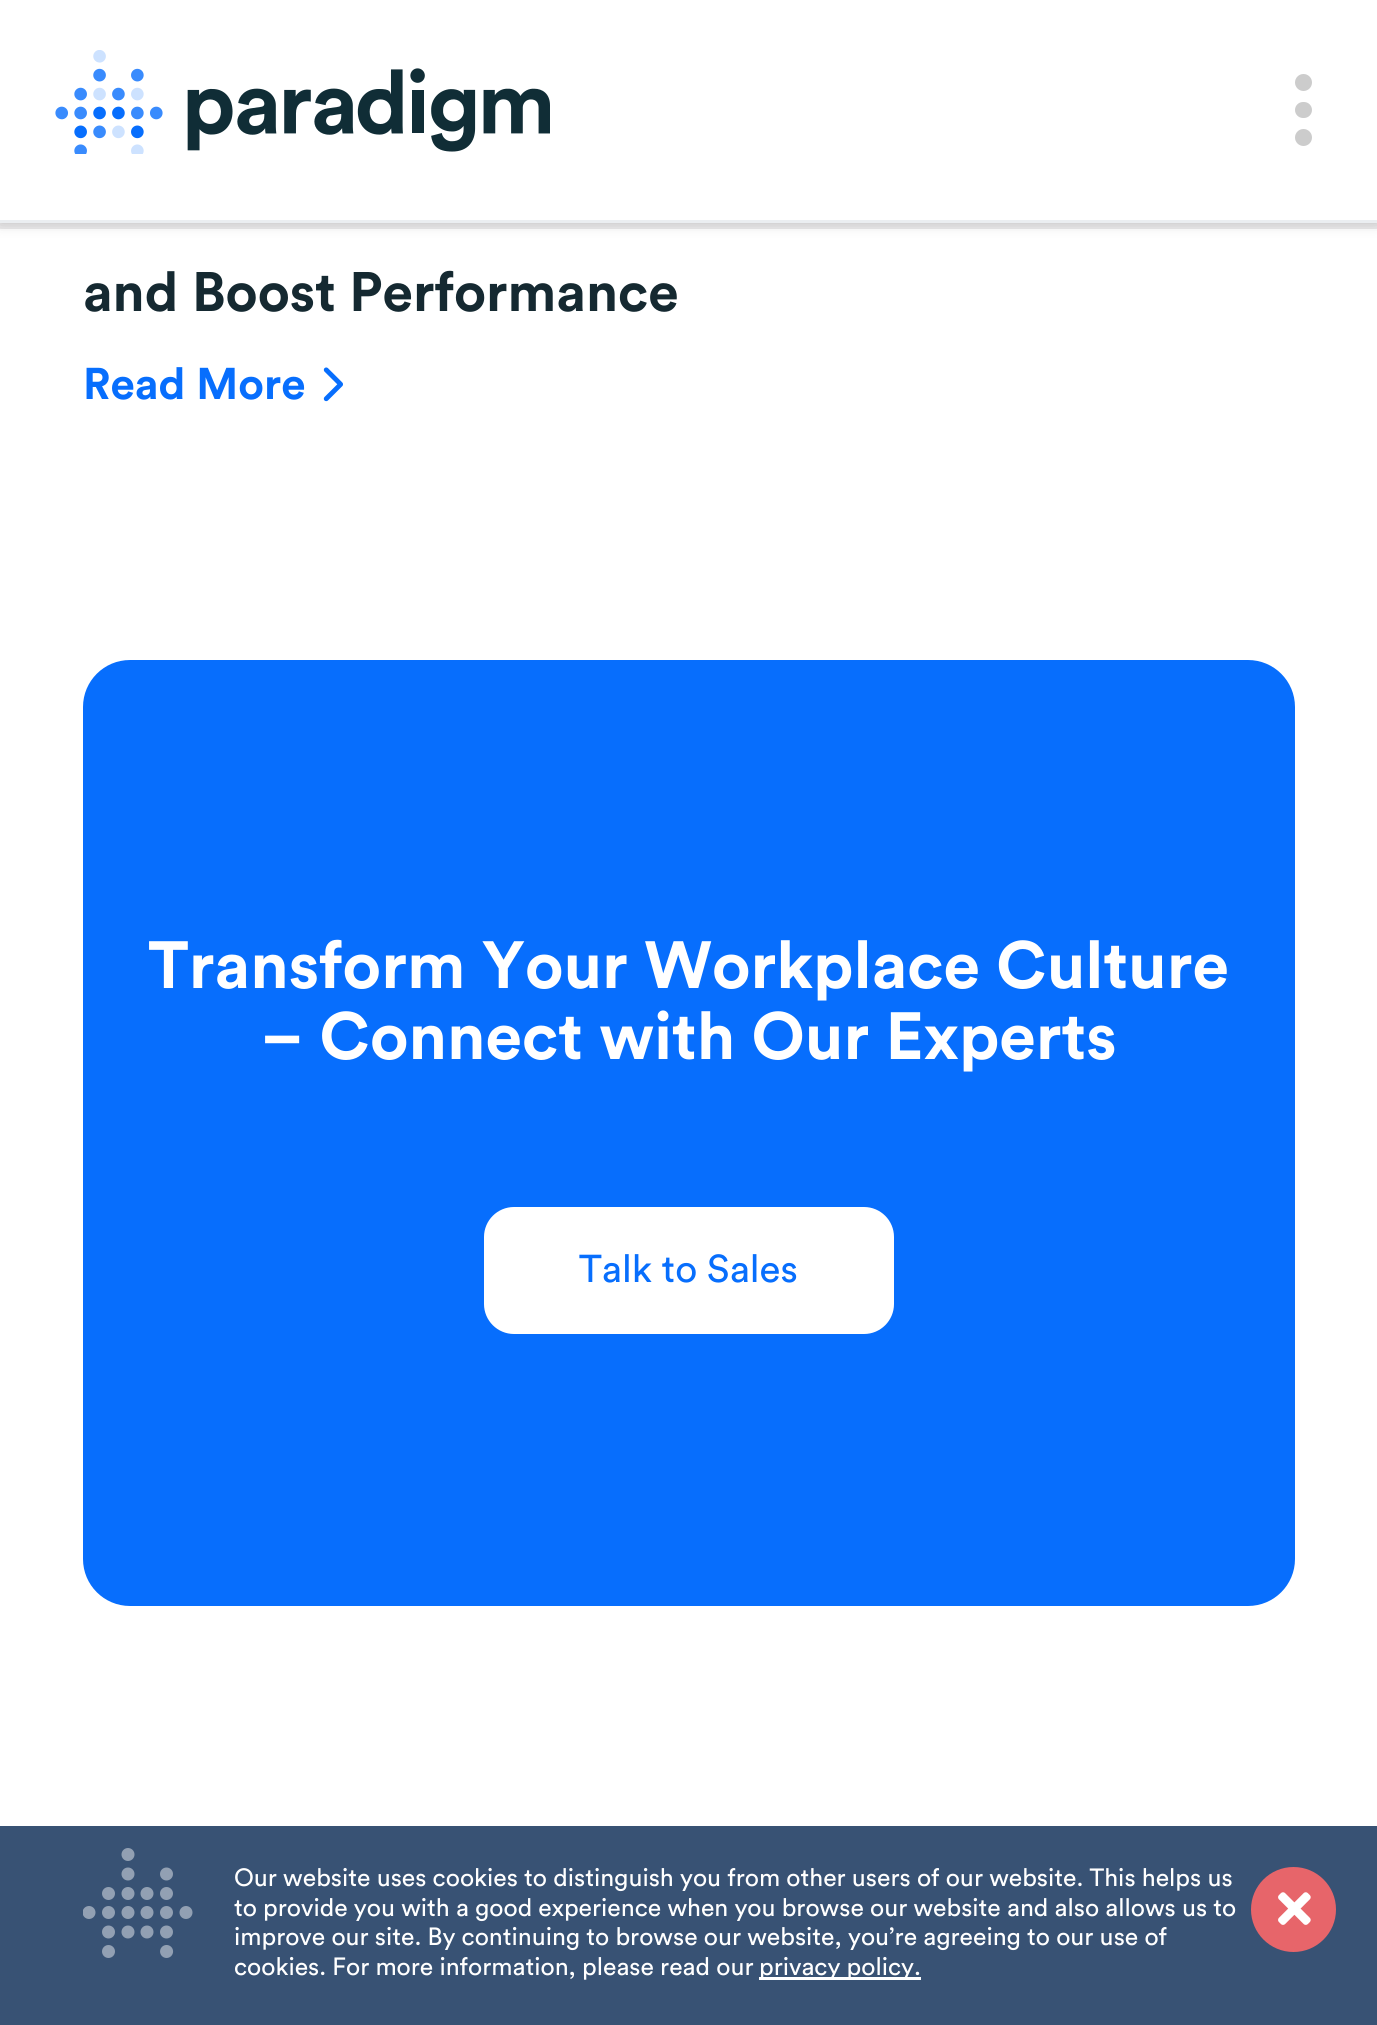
#include <cairo.h>
#include <math.h>
#include <stddef.h>


static void rgb(cairo_t *cr, int r, int g, int b)
{
	cairo_set_source_rgb(cr, r / 255.0, g / 255.0, b / 255.0);
}

static void face(cairo_t *cr, const char *family, double size, int italic, int bold)
{
	cairo_select_font_face(cr, family, italic ? CAIRO_FONT_SLANT_ITALIC : CAIRO_FONT_SLANT_NORMAL,
		bold ? CAIRO_FONT_WEIGHT_BOLD : CAIRO_FONT_WEIGHT_NORMAL);
	cairo_set_font_size(cr, size);
}

static void label(cairo_t *cr, double x, double y, const char *s)
{
	cairo_move_to(cr, x, y);
	cairo_show_text(cr, s);
}

static void rect(cairo_t *cr, double x, double y, double w, double h)
{
	cairo_rectangle(cr, x, y, w, h);
	cairo_fill(cr);
}

static void rrect(cairo_t *cr, double x, double y, double w, double h, double r)
{
	cairo_new_sub_path(cr);
	cairo_arc(cr, x + w - r, y + h - r, r, 0, M_PI / 2);
	cairo_arc(cr, x + r, y + h - r, r, M_PI / 2, M_PI);
	cairo_arc(cr, x + r, y + r, r, M_PI, 1.5 * M_PI);
	cairo_arc(cr, x + w - r, y + r, r, 1.5 * M_PI, 2 * M_PI);
	cairo_close_path(cr);
}

static void soft_shadow(cairo_t *cr, double x, double y, double w, double h, double r, double blur, double alpha)
{
	cairo_push_group_with_content(cr, CAIRO_CONTENT_ALPHA);
	cairo_set_operator(cr, CAIRO_OPERATOR_SOURCE);
	for (int i = 15; i >= -15 && fmin(w, h) + blur * i / 3 > 0; i -= 2) {
		double e = blur * i / 6;
		cairo_set_source_rgba(cr, 0, 0, 0, alpha * erfc((i - 1) / 8.5) / 2);
		rrect(cr, x - e, y - e, w + 2 * e, h + 2 * e, fmax(0, fmin(r + e + blur * .6, fmin(w, h) / 2 + e)));
		cairo_fill(cr);
	}
	cairo_pattern_t *soft = cairo_pop_group(cr);
	cairo_mask(cr, soft);
	cairo_pattern_destroy(soft);
}

static void image(cairo_t *cr, const char *path, double x, double y, double w, double h)
{
	cairo_surface_t *image = cairo_image_surface_create_from_png(path);
	cairo_save(cr);
	cairo_set_source_surface(cr, image, x, y);
	cairo_rectangle(cr, x, y, w, h);
	cairo_fill(cr);
	cairo_restore(cr);
	cairo_surface_destroy(image);
}

static void draw(cairo_t *cr) {
	rgb(cr, 255, 255, 255);
	cairo_paint(cr);
	rgb(cr, 236, 235, 236);
	rect(cr, 0, 223, 1377, 6);
	rgb(cr, 0, 0, 0);
	soft_shadow(cr, 0, 0, 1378, 223, 0, 7, 0.2);
	rgb(cr, 255, 255, 255);
	rect(cr, 0, 0, 1377, 220);
	rgb(cr, 235, 238, 241);
	rect(cr, 0, 220, 1377, 3);
	image(cr, "image0.png", 55, 50, 495, 104);
	rgb(cr, 204, 204, 204);
	cairo_arc(cr, 1303.5, 82.5, 8.5, 0, 2 * M_PI);
	cairo_fill(cr);
	rrect(cr, 1295, 102, 17, 16, 8);
	cairo_fill(cr);
	cairo_arc(cr, 1303.5, 137.5, 8.5, 0, 2 * M_PI);
	cairo_fill(cr);
	face(cr, "Circular", 55, 0, 1);
	rgb(cr, 21, 41, 49);
	label(cr, 83, 311, "and Boost Performance");
	face(cr, "Circular", 44, 0, 1);
	rgb(cr, 7, 110, 253);
	label(cr, 83, 399, "Read More");
	image(cr, "image1.png", 323, 367, 20, 35);
	rrect(cr, 83, 660, 1212, 946, 47);
	cairo_fill(cr);
	face(cr, "Circular", 66, 0, 1);
	rgb(cr, 255, 255, 255);
	label(cr, 148, 988, "Transform Your Workplace Culture");
	label(cr, 261, 1059, "– Connect with Our Experts");
	rrect(cr, 487, 1210, 404, 121, 27);
	cairo_fill_preserve(cr);
	cairo_set_line_width(cr, 6);
	cairo_stroke(cr);
	face(cr, "Circular", 38.5, 0, 0);
	rgb(cr, 7, 110, 253);
	label(cr, 579, 1282, "Talk to Sales");
	rgb(cr, 56, 82, 116);
	rect(cr, 0, 1826, 1377, 199);
	image(cr, "image2.png", 83, 1848, 110, 110);
	face(cr, "Circular", 24.75, 0, 0);
	rgb(cr, 255, 255, 255);
	label(cr, 234, 1886, "Our website uses cookies to distinguish you from other users of our website. This helps us");
	label(cr, 234, 1916, "to provide you with a good experience when you browse our website and also allows us to");
	label(cr, 234, 1945, "improve our site. By continuing to browse our website, you’re agreeing to our use of");
	label(cr, 234, 1975, "cookies. For more information, please read our");
	rect(cr, 759, 1977, 162, 3);
	label(cr, 759, 1975, "privacy policy.");
	image(cr, "image3.png", 1251, 1867, 85, 85);
}

int main(void) {
	cairo_surface_t *surface = cairo_image_surface_create(CAIRO_FORMAT_RGB24, 1377, 2025);
	cairo_t *cr = cairo_create(surface);
	cairo_font_options_t *options = cairo_font_options_create();
	cairo_font_options_set_hint_metrics(options, CAIRO_HINT_METRICS_OFF);
	cairo_font_options_set_hint_style(options, CAIRO_HINT_STYLE_NONE);
	cairo_set_font_options(cr, options);
	cairo_set_miter_limit(cr, 4);
	draw(cr);
	cairo_surface_write_to_png(surface, "render.png");
	cairo_font_options_destroy(options);
	cairo_destroy(cr);
	cairo_surface_destroy(surface);
	return 0;
}
